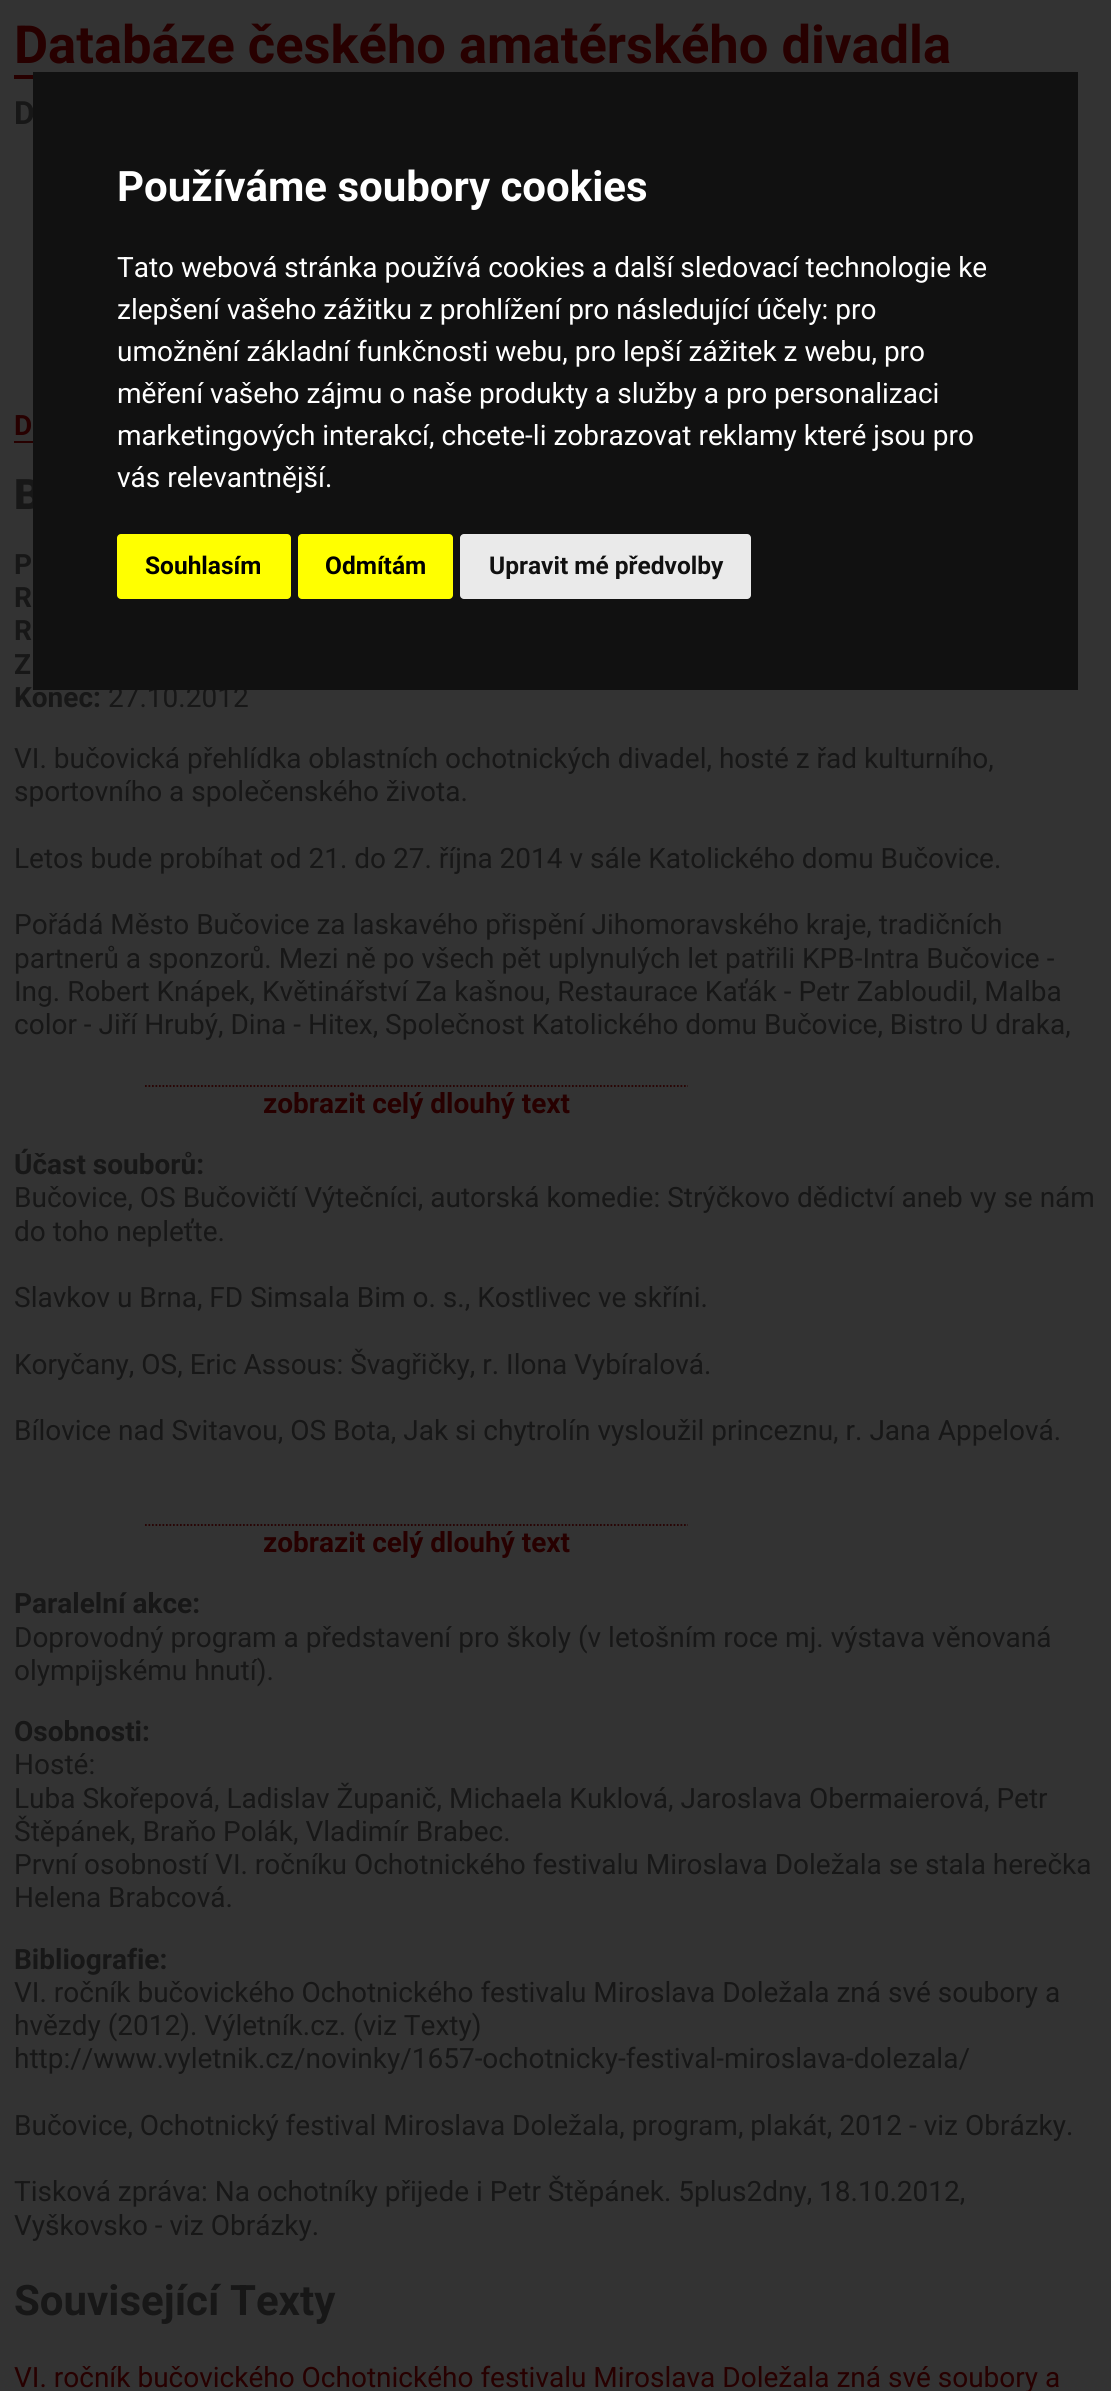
#include <cairo.h>
#include <math.h>
#include <stddef.h>


static void rgb(cairo_t *cr, int r, int g, int b)
{
	cairo_set_source_rgb(cr, r / 255.0, g / 255.0, b / 255.0);
}

static void face(cairo_t *cr, const char *family, double size, int italic, int bold)
{
	cairo_select_font_face(cr, family, italic ? CAIRO_FONT_SLANT_ITALIC : CAIRO_FONT_SLANT_NORMAL,
		bold ? CAIRO_FONT_WEIGHT_BOLD : CAIRO_FONT_WEIGHT_NORMAL);
	cairo_set_font_size(cr, size);
}

static void label(cairo_t *cr, double x, double y, const char *s)
{
	cairo_move_to(cr, x, y);
	cairo_show_text(cr, s);
}

static void rect(cairo_t *cr, double x, double y, double w, double h)
{
	cairo_rectangle(cr, x, y, w, h);
	cairo_fill(cr);
}

static void rrect(cairo_t *cr, double x, double y, double w, double h, double r)
{
	cairo_new_sub_path(cr);
	cairo_arc(cr, x + w - r, y + h - r, r, 0, M_PI / 2);
	cairo_arc(cr, x + r, y + h - r, r, M_PI / 2, M_PI);
	cairo_arc(cr, x + r, y + r, r, M_PI, 1.5 * M_PI);
	cairo_arc(cr, x + w - r, y + r, r, 1.5 * M_PI, 2 * M_PI);
	cairo_close_path(cr);
}

static void draw(cairo_t *cr) {
	rgb(cr, 51, 51, 51);
	cairo_paint(cr);
	rgb(cr, 39, 0, 0);
	rect(cr, 14, 75, 19, 4);
	face(cr, "Roboto", 52.5, 0, 1);
	label(cr, 14, 63, "Databáze českého amatérského divadla");
	face(cr, "Roboto", 32, 0, 1);
	rgb(cr, 23, 23, 23);
	label(cr, 14, 124, "D");
	face(cr, "Roboto", 28, 0, 1);
	rgb(cr, 39, 0, 0);
	label(cr, 14, 435, "D");
	rect(cr, 14, 441, 19, 2);
	face(cr, "Roboto Black", 42, 0, 0);
	rgb(cr, 23, 23, 23);
	label(cr, 14, 509, "B");
	face(cr, "Roboto", 28, 0, 1);
	label(cr, 14, 574, "P");
	label(cr, 14, 607, "R");
	label(cr, 14, 640, "R");
	label(cr, 14, 674, "Z");
	label(cr, 14, 707, "Konec:");
	face(cr, "Roboto", 28, 0, 0);
	label(cr, 108, 707, "27.10.2012");
	label(cr, 14, 768, "VI. bučovická přehlídka oblastních ochotnických divadel, hosté z řad kulturního,");
	label(cr, 14, 801, "sportovního a společenského života.");
	label(cr, 14, 868, "Letos bude probíhat od 21. do 27. října 2014 v sále Katolického domu Bučovice.");
	label(cr, 14, 934, "Pořádá Město Bučovice za laskavého přispění Jihomoravského kraje, tradičních");
	label(cr, 14, 968, "partnerů a sponzorů. Mezi ně po všech pět uplynulých let patřili KPB-Intra Bučovice -");
	label(cr, 14, 1001, "Ing. Robert Knápek, Květinářství Za kašnou, Restaurace Kaťák - Petr Zabloudil, Malba");
	label(cr, 14, 1034, "color - Jiří Hrubý, Dina - Hitex, Společnost Katolického domu Bučovice, Bistro U draka,");
	cairo_new_path(cr);
	cairo_move_to(cr, 145, 1086);
	cairo_line_to(cr, 688, 1086);
	rgb(cr, 39, 0, 0);
	cairo_set_line_width(cr, 1.8);
	cairo_set_dash(cr, (double[]){1.75, 1.75}, 2, 0);
	cairo_stroke(cr);
	face(cr, "Roboto", 28, 0, 1);
	label(cr, 263, 1113, "zobrazit celý dlouhý text");
	rgb(cr, 23, 23, 23);
	label(cr, 14, 1174, "Účast souborů:");
	face(cr, "Roboto", 28, 0, 0);
	label(cr, 14, 1207, "Bučovice, OS Bučovičtí Výtečníci, autorská komedie: Strýčkovo dědictví aneb vy se nám");
	label(cr, 14, 1241, "do toho nepleťte.");
	label(cr, 14, 1307, "Slavkov u Brna, FD Simsala Bim o. s., Kostlivec ve skříni.");
	label(cr, 14, 1374, "Koryčany, OS, Eric Assous: Švagřičky, r. Ilona Vybíralová.");
	label(cr, 14, 1440, "Bílovice nad Svitavou, OS Bota, Jak si chytrolín vysloužil princeznu, r. Jana Appelová.");
	cairo_new_path(cr);
	cairo_move_to(cr, 145, 1525);
	cairo_line_to(cr, 688, 1525);
	rgb(cr, 39, 0, 0);
	cairo_stroke(cr);
	face(cr, "Roboto", 28, 0, 1);
	label(cr, 263, 1552, "zobrazit celý dlouhý text");
	rgb(cr, 23, 23, 23);
	label(cr, 14, 1613, "Paralelní akce:");
	face(cr, "Roboto", 28, 0, 0);
	label(cr, 14, 1647, "Doprovodný program a představení pro školy (v letošním roce mj. výstava věnovaná");
	label(cr, 14, 1680, "olympijskému hnutí).");
	face(cr, "Roboto", 28, 0, 1);
	label(cr, 14, 1741, "Osobnosti:");
	face(cr, "Roboto", 28, 0, 0);
	label(cr, 14, 1774, "Hosté:");
	label(cr, 14, 1808, "Luba Skořepová, Ladislav Županič, Michaela Kuklová, Jaroslava Obermaierová, Petr");
	label(cr, 14, 1841, "Štěpánek, Braňo Polák, Vladimír Brabec.");
	label(cr, 14, 1874, "První osobností VI. ročníku Ochotnického festivalu Miroslava Doležala se stala herečka");
	label(cr, 14, 1907, "Helena Brabcová.");
	face(cr, "Roboto", 28, 0, 1);
	label(cr, 14, 1969, "Bibliografie:");
	face(cr, "Roboto", 28, 0, 0);
	label(cr, 14, 2002, "VI. ročník bučovického Ochotnického festivalu Miroslava Doležala zná své soubory a");
	label(cr, 14, 2035, "hvězdy (2012). Výletník.cz. (viz Texty)");
	label(cr, 14, 2068, "http://www.vyletnik.cz/novinky/1657-ochotnicky-festival-miroslava-dolezala/");
	label(cr, 14, 2135, "Bučovice, Ochotnický festival Miroslava Doležala, program, plakát, 2012 - viz Obrázky.");
	label(cr, 14, 2201, "Tisková zpráva: Na ochotníky přijede i Petr Štěpánek. 5plus2dny, 18.10.2012,");
	label(cr, 14, 2235, "Vyškovsko - viz Obrázky.");
	face(cr, "Roboto", 42, 0, 1);
	label(cr, 14, 2315, "Související Texty");
	face(cr, "Roboto", 28, 0, 0);
	rgb(cr, 39, 0, 0);
	label(cr, 14, 2387, "VI. ročník bučovického Ochotnického festivalu Miroslava Doležala zná své soubory a");
	rgb(cr, 17, 17, 17);
	rect(cr, 33, 72, 1045, 618);
	face(cr, "Roboto", 42, 0, 1);
	rgb(cr, 255, 255, 255);
	label(cr, 117, 201, "Používáme soubory cookies");
	face(cr, "Roboto", 28, 0, 0);
	label(cr, 117, 277, "Tato webová stránka používá cookies a další sledovací technologie ke");
	label(cr, 117, 319, "zlepšení vašeho zážitku z prohlížení pro následující účely: pro");
	label(cr, 117, 361, "umožnění základní funkčnosti webu, pro lepší zážitek z webu, pro");
	label(cr, 117, 403, "měření vašeho zájmu o naše produkty a služby a pro personalizaci");
	label(cr, 117, 445, "marketingových interakcí, chcete-li zobrazovat reklamy které jsou pro");
	label(cr, 117, 487, "vás relevantnější.");
	rgb(cr, 255, 255, 0);
	rrect(cr, 117, 534, 174, 65, 4);
	cairo_fill(cr);
	face(cr, "Roboto", 24.5, 0, 1);
	rgb(cr, 0, 0, 0);
	label(cr, 145, 574, "Souhlasím");
	rgb(cr, 255, 255, 0);
	rrect(cr, 298, 534, 155, 65, 4);
	cairo_fill(cr);
	rgb(cr, 0, 0, 0);
	label(cr, 325, 574, "Odmítám");
	rgb(cr, 234, 234, 234);
	rrect(cr, 460, 534, 291, 65, 4);
	cairo_fill(cr);
	rgb(cr, 17, 17, 17);
	label(cr, 489, 574, "Upravit mé předvolby");
}

int main(void) {
	cairo_surface_t *surface = cairo_image_surface_create(CAIRO_FORMAT_RGB24, 1111, 2391);
	cairo_t *cr = cairo_create(surface);
	cairo_font_options_t *options = cairo_font_options_create();
	cairo_font_options_set_hint_metrics(options, CAIRO_HINT_METRICS_OFF);
	cairo_font_options_set_hint_style(options, CAIRO_HINT_STYLE_NONE);
	cairo_set_font_options(cr, options);
	cairo_set_miter_limit(cr, 4);
	draw(cr);
	cairo_surface_write_to_png(surface, "render.png");
	cairo_font_options_destroy(options);
	cairo_destroy(cr);
	cairo_surface_destroy(surface);
	return 0;
}
